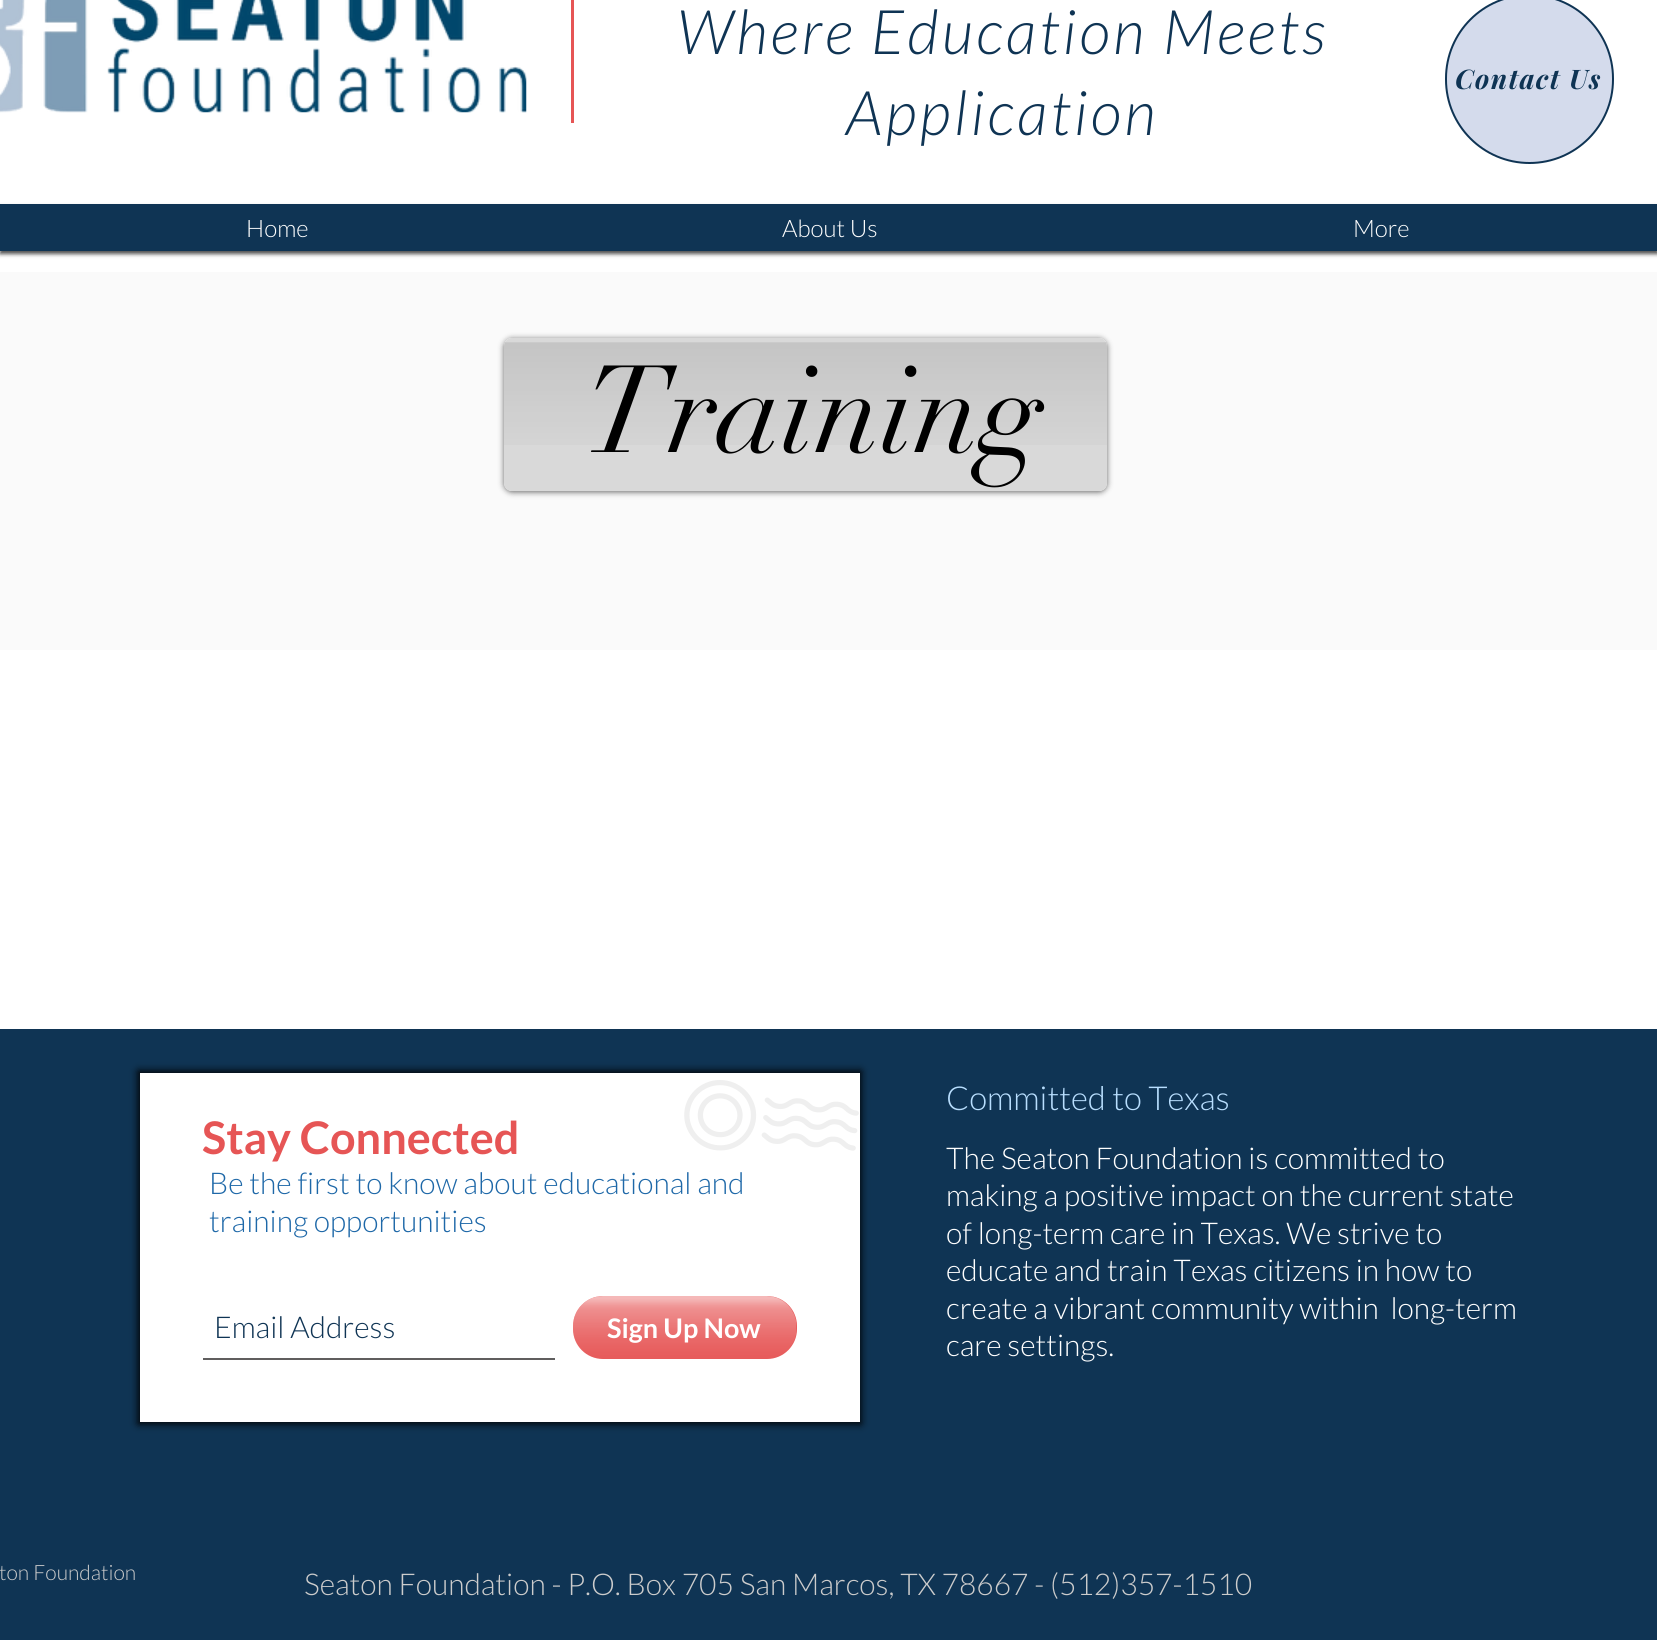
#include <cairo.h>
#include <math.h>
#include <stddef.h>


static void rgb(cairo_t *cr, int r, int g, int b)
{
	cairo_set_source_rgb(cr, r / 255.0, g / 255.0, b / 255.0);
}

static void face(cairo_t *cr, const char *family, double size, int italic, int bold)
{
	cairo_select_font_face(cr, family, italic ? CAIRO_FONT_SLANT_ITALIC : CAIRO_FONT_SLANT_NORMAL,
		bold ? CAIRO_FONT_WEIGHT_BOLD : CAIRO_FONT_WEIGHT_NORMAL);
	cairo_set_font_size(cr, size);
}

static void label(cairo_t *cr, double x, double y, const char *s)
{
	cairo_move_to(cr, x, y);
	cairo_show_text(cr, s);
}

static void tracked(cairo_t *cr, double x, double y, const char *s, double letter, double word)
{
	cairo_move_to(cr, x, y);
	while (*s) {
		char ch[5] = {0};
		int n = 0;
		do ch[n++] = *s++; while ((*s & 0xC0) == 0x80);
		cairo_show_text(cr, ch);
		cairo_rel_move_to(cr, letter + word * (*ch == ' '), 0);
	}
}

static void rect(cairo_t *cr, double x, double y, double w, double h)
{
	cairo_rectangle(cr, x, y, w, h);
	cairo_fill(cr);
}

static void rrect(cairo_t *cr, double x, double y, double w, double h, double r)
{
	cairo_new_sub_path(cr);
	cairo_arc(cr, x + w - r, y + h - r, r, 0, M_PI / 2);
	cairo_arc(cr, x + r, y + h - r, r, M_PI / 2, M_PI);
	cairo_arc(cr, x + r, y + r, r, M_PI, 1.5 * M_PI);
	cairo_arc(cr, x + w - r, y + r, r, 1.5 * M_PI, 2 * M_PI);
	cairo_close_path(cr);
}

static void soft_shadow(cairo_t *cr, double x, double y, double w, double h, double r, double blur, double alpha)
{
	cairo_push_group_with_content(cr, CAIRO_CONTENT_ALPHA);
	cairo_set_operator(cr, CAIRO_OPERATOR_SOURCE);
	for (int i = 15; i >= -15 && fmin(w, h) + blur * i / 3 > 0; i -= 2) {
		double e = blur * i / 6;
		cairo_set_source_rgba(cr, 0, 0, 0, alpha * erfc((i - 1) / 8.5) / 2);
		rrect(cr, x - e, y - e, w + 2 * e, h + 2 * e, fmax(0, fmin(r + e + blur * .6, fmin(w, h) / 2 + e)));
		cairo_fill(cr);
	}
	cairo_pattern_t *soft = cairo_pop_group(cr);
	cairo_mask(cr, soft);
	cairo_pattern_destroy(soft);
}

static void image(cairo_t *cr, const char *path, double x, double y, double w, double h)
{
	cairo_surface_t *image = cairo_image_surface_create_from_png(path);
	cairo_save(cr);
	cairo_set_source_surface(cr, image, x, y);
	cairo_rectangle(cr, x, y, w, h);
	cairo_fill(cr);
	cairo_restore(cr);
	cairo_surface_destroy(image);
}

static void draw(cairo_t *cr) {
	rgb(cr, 255, 255, 255);
	cairo_paint(cr);
	image(cr, "image0.png", 0, 0, 527, 113);
	rgb(cr, 230, 85, 85);
	rect(cr, 571, 0, 3, 123);
	face(cr, "Lato Light", 61.5, 1, 0);
	rgb(cr, 15, 52, 84);
	tracked(cr, 677, 54, "Where Education Meets", 3.1, 0);
	tracked(cr, 846, 135, "Application", 3.1, 0);
	rgb(cr, 212, 219, 236);
	rrect(cr, 1446, -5, 167, 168, 83.5);
	cairo_fill_preserve(cr);
	rgb(cr, 15, 52, 84);
	cairo_stroke(cr);
	face(cr, "Playfair Display", 27, 1, 1);
	tracked(cr, 1455, 89, "Contact Us", 1.4, 0);
	rgb(cr, 0, 0, 0);
	soft_shadow(cr, 0, 207, 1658, 47, 0, 2, 0.7);
	rgb(cr, 15, 52, 84);
	rect(cr, 0, 204, 1657, 47);
	face(cr, "Lato Light", 24, 0, 0);
	rgb(cr, 255, 255, 255);
	label(cr, 246, 237, "Home");
	label(cr, 782, 237, "About Us");
	label(cr, 1353, 237, "More");
	rgb(cr, 250, 250, 250);
	rect(cr, 0, 272, 1657, 378);
	cairo_save(cr);
	cairo_set_fill_rule(cr, CAIRO_FILL_RULE_EVEN_ODD);
	cairo_new_path(cr);
	cairo_move_to(cr, 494, 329);
	cairo_line_to(cr, 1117, 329);
	cairo_line_to(cr, 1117, 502);
	cairo_line_to(cr, 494, 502);
	cairo_close_path(cr);
	cairo_move_to(cr, 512, 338);
	cairo_line_to(cr, 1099, 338);
	cairo_curve_to(cr, 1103.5, 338, 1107, 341.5, 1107, 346);
	cairo_line_to(cr, 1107, 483);
	cairo_curve_to(cr, 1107, 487.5, 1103.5, 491, 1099, 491);
	cairo_line_to(cr, 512, 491);
	cairo_curve_to(cr, 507.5, 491, 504, 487.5, 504, 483);
	cairo_line_to(cr, 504, 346);
	cairo_curve_to(cr, 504, 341.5, 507.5, 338, 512, 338);
	cairo_close_path(cr);
	cairo_clip(cr);
	rgb(cr, 0, 0, 0);
	soft_shadow(cr, 504, 339, 603, 153, 8, 3, 0.6);
	cairo_restore(cr);
	cairo_set_source_rgba(cr, 0.627, 0.627, 0.624, 0.37);
	rrect(cr, 504, 338, 603, 153, 8);
	cairo_fill(cr);
	image(cr, "image1.png", 504, 342, 603, 103);
	face(cr, "didot", 121.5, 0, 0);
	rgb(cr, 0, 0, 0);
	label(cr, 584, 452, "Training");
	rgb(cr, 15, 52, 84);
	rect(cr, 0, 1029, 1657, 611);
	rgb(cr, 0, 0, 0);
	soft_shadow(cr, 138, 1071, 723, 353, 0, 4, 1);
	rgb(cr, 255, 255, 255);
	rect(cr, 140, 1073, 720, 349);
	face(cr, "Lato", 45, 0, 1);
	rgb(cr, 230, 85, 85);
	label(cr, 202, 1154, "Stay Connected");
	image(cr, "image2.png", 684, 1080, 175, 71);
	face(cr, "Lato Light", 30, 0, 0);
	rgb(cr, 30, 104, 168);
	label(cr, 209, 1194, "Be the first to know about educational and");
	label(cr, 209, 1232, "training opportunities");
	rgb(cr, 96, 94, 94);
	rect(cr, 203, 1358, 352, 2);
	rgb(cr, 15, 52, 84);
	label(cr, 214, 1338, "Email Address");
	rgb(cr, 230, 85, 85);
	rrect(cr, 573, 1296, 224, 63, 30);
	cairo_fill(cr);
	image(cr, "image3.png", 573, 1296, 224, 63);
	face(cr, "Lato", 27, 0, 1);
	rgb(cr, 255, 255, 255);
	label(cr, 607, 1338, "Sign Up Now");
	face(cr, "Lato Light", 33, 0, 0);
	rgb(cr, 184, 222, 254);
	label(cr, 946, 1110, "Committed to Texas");
	face(cr, "Lato Light", 30, 0, 0);
	rgb(cr, 255, 255, 255);
	label(cr, 946, 1169, "The Seaton Foundation is committed to");
	label(cr, 946, 1206, "making a positive impact on the current state");
	label(cr, 946, 1244, "of long-term care in Texas. We strive to");
	label(cr, 946, 1281, "educate and train Texas citizens in how to");
	label(cr, 946, 1319, "create a vibrant community within  long-term");
	label(cr, 946, 1356, "care settings.");
	face(cr, "Lato Light", 21, 0, 0);
	rgb(cr, 204, 204, 204);
	label(cr, -1, 1580, "ton Foundation");
	face(cr, "Lato Light", 30, 0, 0);
	label(cr, 304, 1595, "Seaton Foundation - P.O. Box 705 San Marcos, TX 78667 - (512)357-1510");
}

int main(void) {
	cairo_surface_t *surface = cairo_image_surface_create(CAIRO_FORMAT_RGB24, 1657, 1640);
	cairo_t *cr = cairo_create(surface);
	cairo_font_options_t *options = cairo_font_options_create();
	cairo_font_options_set_hint_metrics(options, CAIRO_HINT_METRICS_OFF);
	cairo_font_options_set_hint_style(options, CAIRO_HINT_STYLE_NONE);
	cairo_set_font_options(cr, options);
	cairo_set_miter_limit(cr, 4);
	draw(cr);
	cairo_surface_write_to_png(surface, "render.png");
	cairo_font_options_destroy(options);
	cairo_destroy(cr);
	cairo_surface_destroy(surface);
	return 0;
}
